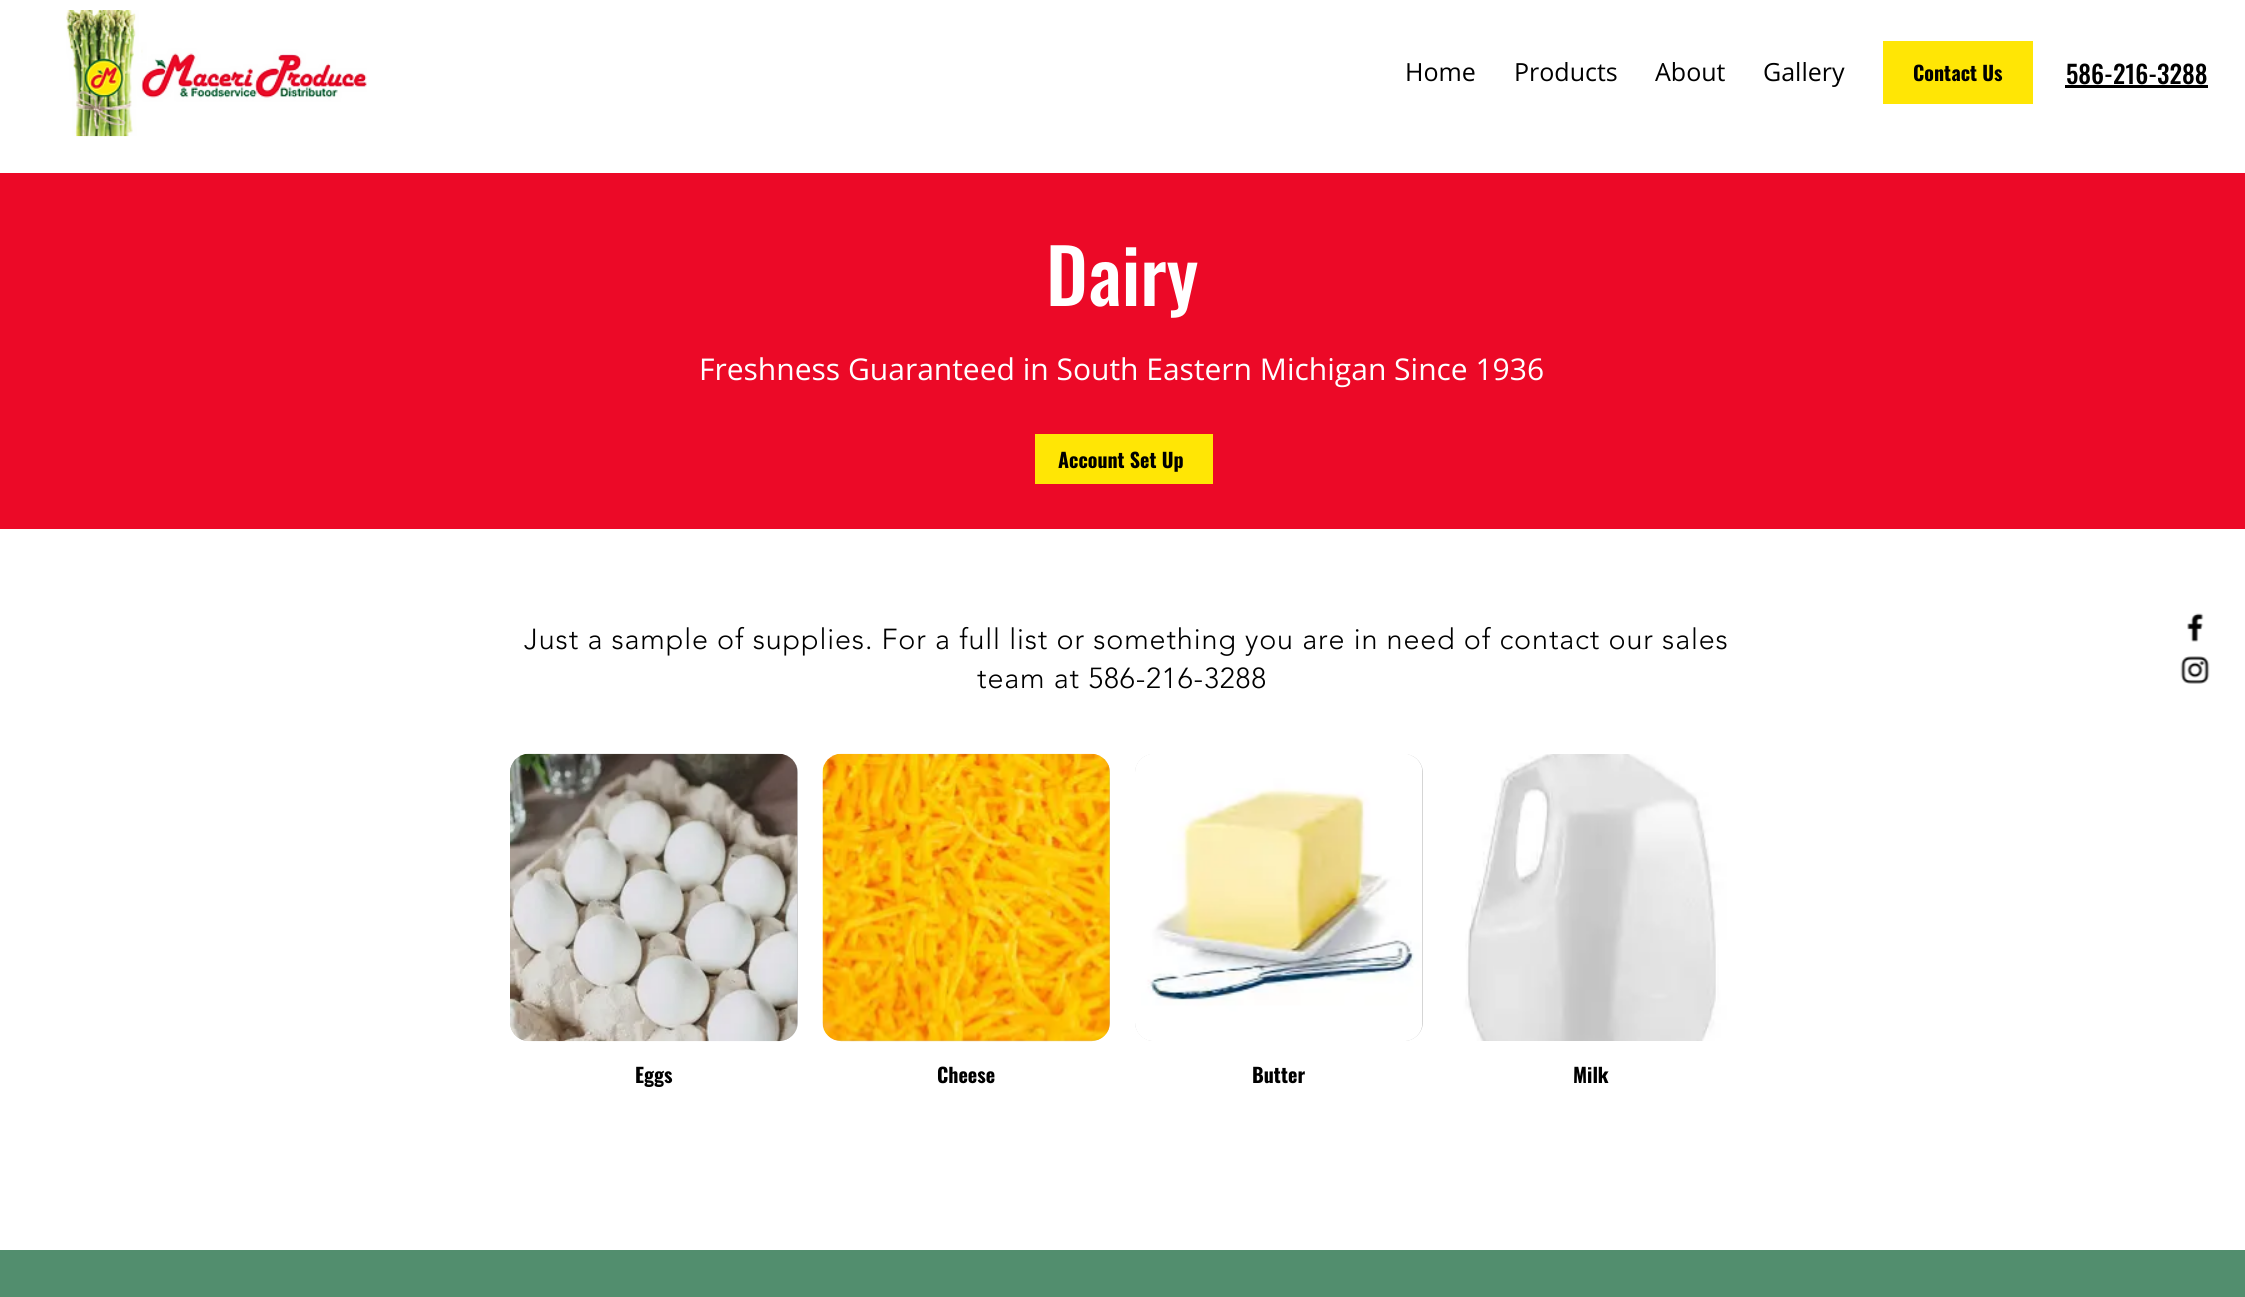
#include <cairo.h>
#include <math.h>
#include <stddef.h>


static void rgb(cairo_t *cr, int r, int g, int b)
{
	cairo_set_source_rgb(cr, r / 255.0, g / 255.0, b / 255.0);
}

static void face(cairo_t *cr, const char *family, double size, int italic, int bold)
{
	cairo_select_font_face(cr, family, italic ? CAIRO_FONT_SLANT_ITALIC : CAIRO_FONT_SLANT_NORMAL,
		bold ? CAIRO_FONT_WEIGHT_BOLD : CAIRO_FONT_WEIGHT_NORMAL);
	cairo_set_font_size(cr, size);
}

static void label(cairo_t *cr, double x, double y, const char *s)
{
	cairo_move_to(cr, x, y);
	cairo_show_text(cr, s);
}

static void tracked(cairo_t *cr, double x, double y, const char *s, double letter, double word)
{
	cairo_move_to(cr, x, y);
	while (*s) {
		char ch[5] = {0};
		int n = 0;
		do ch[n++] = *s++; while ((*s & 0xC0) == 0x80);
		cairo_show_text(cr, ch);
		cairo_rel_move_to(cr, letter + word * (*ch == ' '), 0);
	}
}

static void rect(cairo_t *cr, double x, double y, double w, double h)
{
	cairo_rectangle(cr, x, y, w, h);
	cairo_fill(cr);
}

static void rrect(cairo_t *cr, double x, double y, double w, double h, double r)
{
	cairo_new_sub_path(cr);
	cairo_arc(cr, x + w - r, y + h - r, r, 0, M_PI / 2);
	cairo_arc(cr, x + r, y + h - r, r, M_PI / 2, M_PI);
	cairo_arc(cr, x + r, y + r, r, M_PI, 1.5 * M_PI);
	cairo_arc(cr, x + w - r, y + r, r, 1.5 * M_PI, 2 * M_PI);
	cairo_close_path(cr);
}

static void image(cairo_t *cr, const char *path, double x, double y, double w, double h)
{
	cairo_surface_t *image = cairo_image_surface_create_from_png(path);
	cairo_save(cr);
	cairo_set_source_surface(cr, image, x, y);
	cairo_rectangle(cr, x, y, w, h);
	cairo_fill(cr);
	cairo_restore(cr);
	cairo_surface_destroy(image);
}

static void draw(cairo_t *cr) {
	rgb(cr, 255, 255, 255);
	cairo_paint(cr);
	image(cr, "image0.png", 66, 10, 301, 127);
	face(cr, "Open Sans", 25, 0, 0);
	rgb(cr, 0, 0, 0);
	label(cr, 1405, 81, "Home");
	label(cr, 1514, 81, "Products");
	label(cr, 1655, 81, "About");
	label(cr, 1763, 81, "Gallery");
	rgb(cr, 255, 230, 5);
	rect(cr, 1883, 41, 150, 63);
	face(cr, "Oswald", 20, 0, 1);
	rgb(cr, 0, 0, 0);
	label(cr, 1913, 81, "Contact Us");
	face(cr, "Oswald Medium", 25, 0, 0);
	label(cr, 2066, 84, "586-216-3288");
	rect(cr, 2065, 85, 143, 3);
	rgb(cr, 236, 9, 39);
	rect(cr, 0, 173, 2245, 356);
	face(cr, "Oswald Medium", 75, 0, 0);
	rgb(cr, 255, 255, 255);
	label(cr, 1046, 306, "Dairy");
	face(cr, "Open Sans", 30, 0, 0);
	label(cr, 699, 380, "Freshness Guaranteed in South Eastern Michigan Since 1936");
	rgb(cr, 255, 230, 5);
	rect(cr, 1035, 434, 178, 50);
	face(cr, "Oswald", 20, 0, 1);
	rgb(cr, 0, 0, 0);
	label(cr, 1058, 468, "Account Set Up");
	face(cr, "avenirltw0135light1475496 Light", 28.75, 0, 0);
	tracked(cr, 524, 649, "Just a sample of supplies. For a full list or something you are in need of contact our sales", 0.85, 0);
	tracked(cr, 977, 688, "team at 586-216-3288", 0.85, 0);
	rgb(cr, 199, 199, 199);
	rrect(cr, 510, 754, 288, 287, 19);
	cairo_fill(cr);
	image(cr, "image1.png", 510, 753, 288, 289);
	face(cr, "Oswald", 20, 0, 1);
	rgb(cr, 0, 0, 0);
	label(cr, 635, 1083, "Eggs");
	rgb(cr, 199, 199, 199);
	rrect(cr, 823, 754, 287, 287, 19);
	cairo_fill(cr);
	image(cr, "image2.png", 822, 753, 288, 289);
	rgb(cr, 0, 0, 0);
	label(cr, 937, 1083, "Cheese");
	rgb(cr, 199, 199, 199);
	rrect(cr, 1135, 754, 288, 287, 19);
	cairo_fill(cr);
	image(cr, "image3.png", 1135, 754, 288, 287);
	rgb(cr, 0, 0, 0);
	label(cr, 1252, 1083, "Butter");
	image(cr, "image4.png", 1448, 754, 287, 287);
	label(cr, 1573, 1083, "Milk");
	image(cr, "image5.png", 2187, 613, 17, 29);
	image(cr, "image6.png", 2180, 656, 30, 28);
	rgb(cr, 82, 142, 110);
	rect(cr, 0, 1250, 2245, 47);
}

int main(void) {
	cairo_surface_t *surface = cairo_image_surface_create(CAIRO_FORMAT_RGB24, 2245, 1297);
	cairo_t *cr = cairo_create(surface);
	cairo_font_options_t *options = cairo_font_options_create();
	cairo_font_options_set_hint_metrics(options, CAIRO_HINT_METRICS_OFF);
	cairo_font_options_set_hint_style(options, CAIRO_HINT_STYLE_NONE);
	cairo_set_font_options(cr, options);
	cairo_set_miter_limit(cr, 4);
	draw(cr);
	cairo_surface_write_to_png(surface, "render.png");
	cairo_font_options_destroy(options);
	cairo_destroy(cr);
	cairo_surface_destroy(surface);
	return 0;
}
